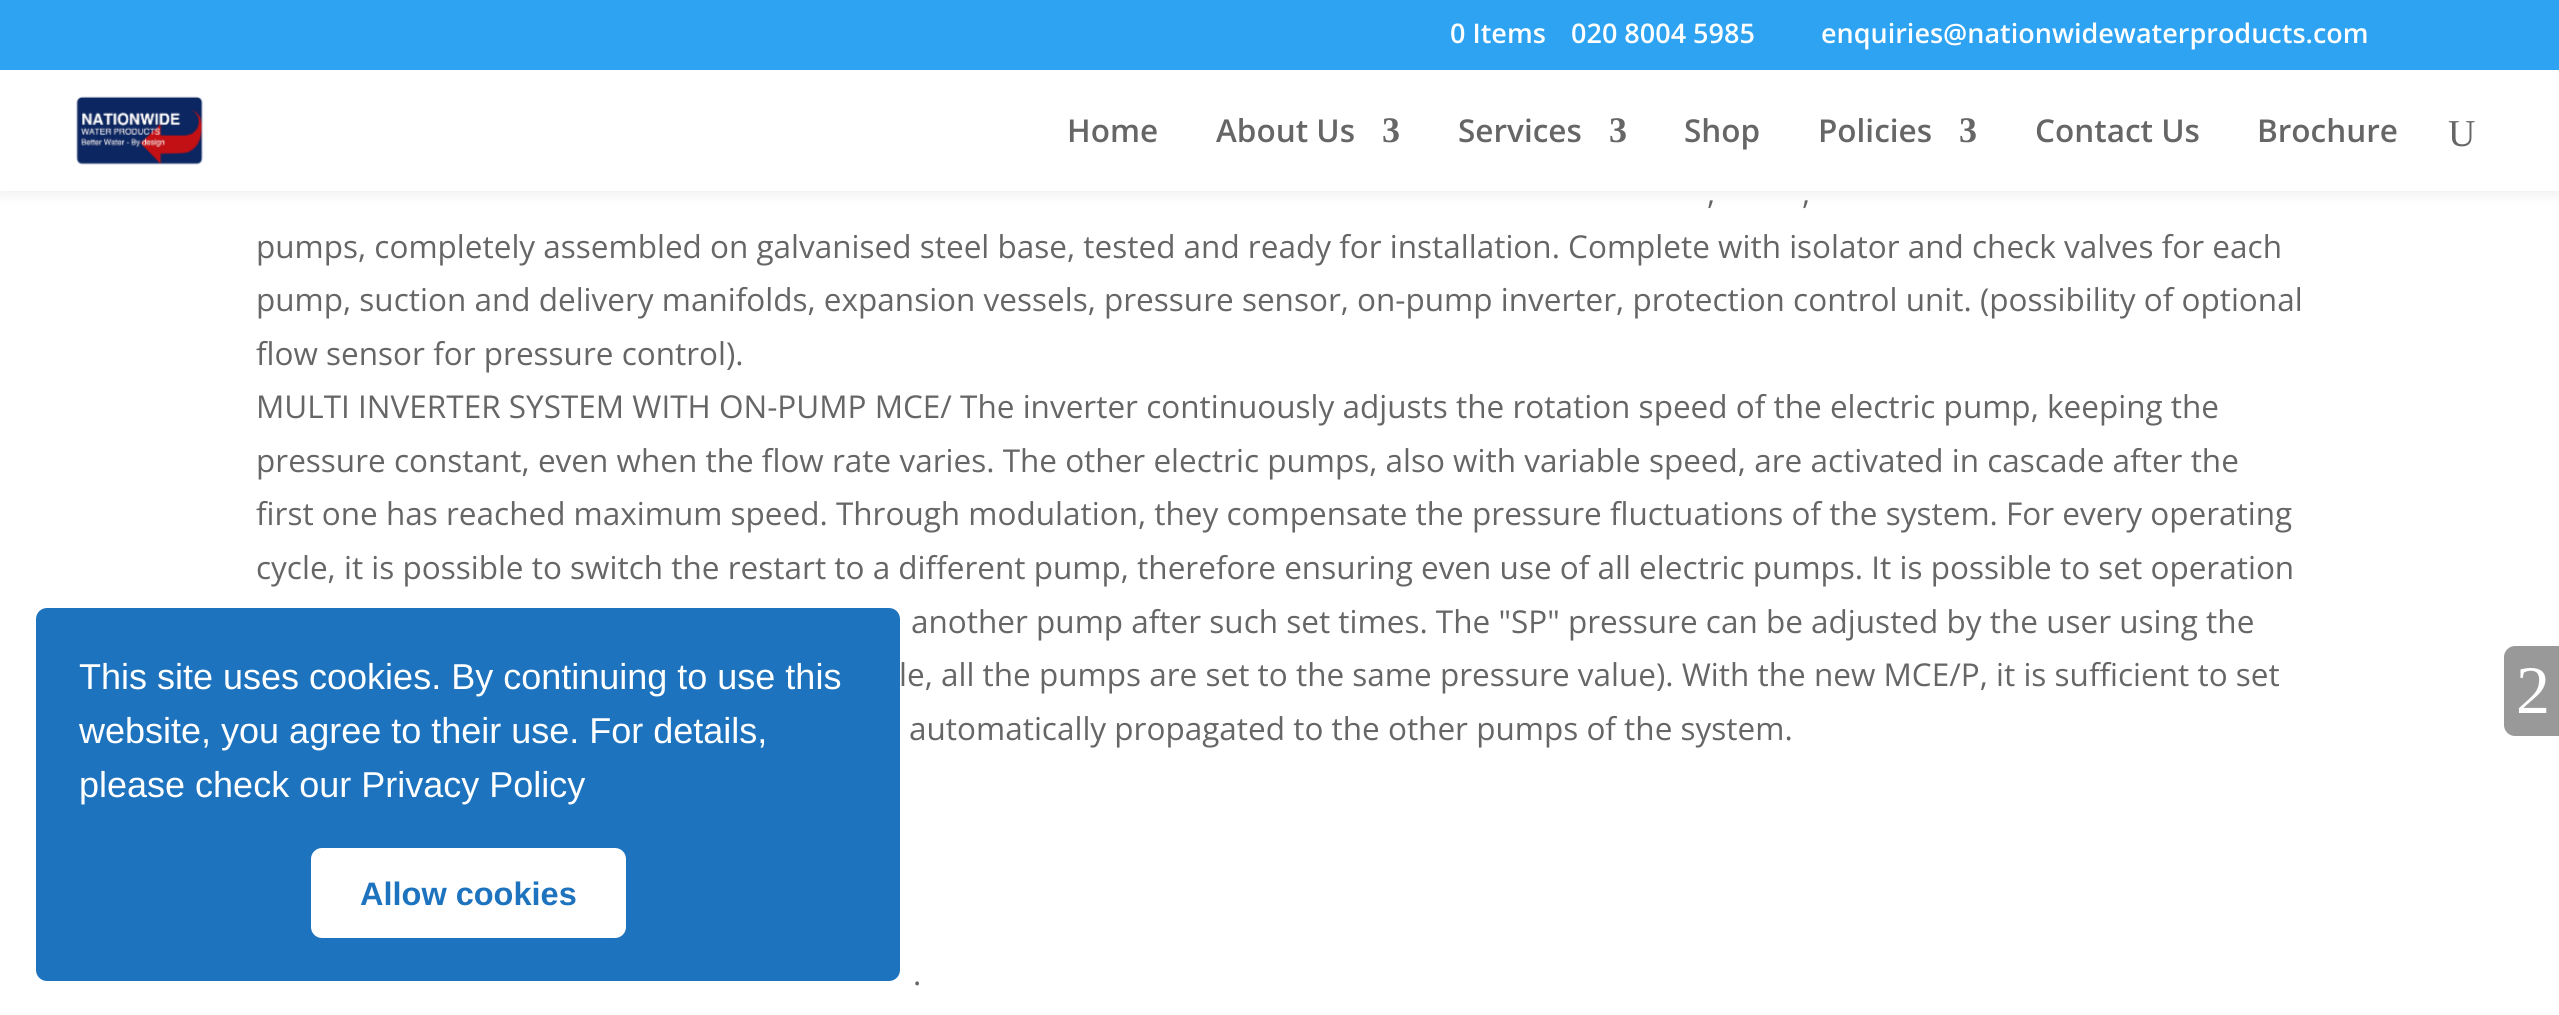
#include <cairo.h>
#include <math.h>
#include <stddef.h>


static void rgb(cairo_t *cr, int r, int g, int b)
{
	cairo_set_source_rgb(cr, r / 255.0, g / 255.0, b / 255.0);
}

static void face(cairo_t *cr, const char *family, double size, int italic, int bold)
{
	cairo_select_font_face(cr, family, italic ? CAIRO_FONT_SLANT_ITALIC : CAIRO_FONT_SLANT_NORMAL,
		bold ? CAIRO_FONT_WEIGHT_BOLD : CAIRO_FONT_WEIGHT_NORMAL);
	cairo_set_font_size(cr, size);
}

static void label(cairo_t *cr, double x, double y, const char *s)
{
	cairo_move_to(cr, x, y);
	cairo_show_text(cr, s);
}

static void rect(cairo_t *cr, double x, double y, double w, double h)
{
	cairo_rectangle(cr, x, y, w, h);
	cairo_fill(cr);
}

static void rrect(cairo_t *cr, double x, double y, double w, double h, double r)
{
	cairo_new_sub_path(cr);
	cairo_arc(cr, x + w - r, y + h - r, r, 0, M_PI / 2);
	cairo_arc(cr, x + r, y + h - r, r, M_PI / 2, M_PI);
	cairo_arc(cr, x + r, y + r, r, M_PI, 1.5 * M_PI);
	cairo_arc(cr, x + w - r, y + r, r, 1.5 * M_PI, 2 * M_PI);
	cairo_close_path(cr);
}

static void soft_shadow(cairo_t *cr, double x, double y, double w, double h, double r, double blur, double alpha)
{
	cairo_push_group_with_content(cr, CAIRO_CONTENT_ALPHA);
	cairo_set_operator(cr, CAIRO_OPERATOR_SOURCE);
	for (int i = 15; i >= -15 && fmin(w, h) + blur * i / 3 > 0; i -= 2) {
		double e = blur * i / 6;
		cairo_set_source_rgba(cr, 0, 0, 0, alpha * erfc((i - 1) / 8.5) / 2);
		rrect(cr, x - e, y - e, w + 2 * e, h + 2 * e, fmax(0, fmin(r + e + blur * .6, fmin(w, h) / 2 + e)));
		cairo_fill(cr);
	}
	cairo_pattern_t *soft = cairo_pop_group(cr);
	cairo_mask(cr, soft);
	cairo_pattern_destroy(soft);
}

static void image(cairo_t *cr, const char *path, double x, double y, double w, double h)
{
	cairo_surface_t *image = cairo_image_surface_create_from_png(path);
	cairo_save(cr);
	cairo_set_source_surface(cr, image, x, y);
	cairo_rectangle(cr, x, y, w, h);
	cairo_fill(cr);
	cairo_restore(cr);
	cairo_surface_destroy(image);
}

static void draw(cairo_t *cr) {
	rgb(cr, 255, 255, 255);
	cairo_paint(cr);
	rgb(cr, 0, 0, 0);
	soft_shadow(cr, 0, 70, 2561, 121, 0, 8, 0.1);
	rgb(cr, 46, 163, 242);
	rect(cr, 0, 0, 2559, 70);
	face(cr, "Open Sans SemiBold", 27, 0, 0);
	rgb(cr, 255, 255, 255);
	label(cr, 1450, 43, "0 Items");
	label(cr, 1571, 43, "020 8004 5985");
	label(cr, 1821, 43, "enquiries@nationwidewaterproducts.com");
	rect(cr, 0, 70, 2559, 121);
	image(cr, "image0.png", 76, 96, 128, 69);
	face(cr, "Open Sans SemiBold", 31.5, 0, 0);
	rgb(cr, 102, 102, 102);
	label(cr, 1067, 142, "Home");
	label(cr, 1216, 142, "About Us");
	face(cr, "Liberation Serif", 36, 0, 1);
	label(cr, 1382, 142, "3");
	face(cr, "Open Sans SemiBold", 31.5, 0, 0);
	label(cr, 1458, 142, "Services");
	face(cr, "Liberation Serif", 36, 0, 1);
	label(cr, 1609, 142, "3");
	face(cr, "Open Sans SemiBold", 31.5, 0, 0);
	label(cr, 1684, 142, "Shop");
	label(cr, 1818, 142, "Policies");
	face(cr, "Liberation Serif", 36, 0, 1);
	label(cr, 1959, 142, "3");
	face(cr, "Open Sans SemiBold", 31.5, 0, 0);
	label(cr, 2035, 142, "Contact Us");
	label(cr, 2257, 142, "Brochure");
	face(cr, "Liberation Serif", 38, 0, 0);
	label(cr, 2448, 146, "U");
	face(cr, "Open Sans", 31.5, 0, 0);
	label(cr, 1707, 204, ",");
	label(cr, 1802, 204, ",");
	label(cr, 256, 258, "pumps, completely assembled on galvanised steel base, tested and ready for installation. Complete with isolator and check valves for each");
	label(cr, 256, 311, "pump, suction and delivery manifolds, expansion vessels, pressure sensor, on-pump inverter, protection control unit. (possibility of optional");
	label(cr, 256, 365, "flow sensor for pressure control).");
	label(cr, 256, 418, "MULTI INVERTER SYSTEM WITH ON-PUMP MCE/ The inverter continuously adjusts the rotation speed of the electric pump, keeping the");
	label(cr, 256, 472, "pressure constant, even when the flow rate varies. The other electric pumps, also with variable speed, are activated in cascade after the");
	label(cr, 256, 525, "first one has reached maximum speed. Through modulation, they compensate the pressure fluctuations of the system. For every operating");
	label(cr, 256, 579, "cycle, it is possible to switch the restart to a different pump, therefore ensuring even use of all electric pumps. It is possible to set operation");
	label(cr, 911, 633, "another pump after such set times. The \"SP\" pressure can be adjusted by the user using the");
	label(cr, 899, 686, "le, all the pumps are set to the same pressure value). With the new MCE/P, it is sufficient to set");
	label(cr, 909, 740, "automatically propagated to the other pumps of the system.");
	label(cr, 913, 985, ".");
	rgb(cr, 153, 153, 153);
	cairo_new_path(cr);
	cairo_move_to(cr, 2515, 646);
	cairo_line_to(cr, 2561, 646);
	cairo_line_to(cr, 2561, 736);
	cairo_line_to(cr, 2515, 736);
	cairo_curve_to(cr, 2509, 736, 2504, 731, 2504, 725);
	cairo_line_to(cr, 2504, 657);
	cairo_curve_to(cr, 2504, 651, 2509, 646, 2515, 646);
	cairo_close_path(cr);
	cairo_fill(cr);
	face(cr, "Liberation Serif", 68, 0, 0);
	rgb(cr, 255, 255, 255);
	label(cr, 2516, 713, "2");
	rgb(cr, 30, 115, 190);
	rrect(cr, 36, 608, 864, 373, 11);
	cairo_fill(cr);
	face(cr, "Liberation Sans", 36, 0, 0);
	rgb(cr, 255, 255, 255);
	label(cr, 79, 689, "This site uses cookies. By continuing to use this");
	label(cr, 79, 743, "website, you agree to their use. For details,");
	label(cr, 79, 797, "please check our Privacy Policy");
	rrect(cr, 311, 848, 315, 90, 11);
	cairo_fill(cr);
	face(cr, "Liberation Sans", 32.5, 0, 1);
	rgb(cr, 30, 115, 190);
	label(cr, 360, 905, "Allow cookies");
}

int main(void) {
	cairo_surface_t *surface = cairo_image_surface_create(CAIRO_FORMAT_RGB24, 2559, 1015);
	cairo_t *cr = cairo_create(surface);
	cairo_font_options_t *options = cairo_font_options_create();
	cairo_font_options_set_hint_metrics(options, CAIRO_HINT_METRICS_OFF);
	cairo_font_options_set_hint_style(options, CAIRO_HINT_STYLE_NONE);
	cairo_set_font_options(cr, options);
	cairo_set_miter_limit(cr, 4);
	draw(cr);
	cairo_surface_write_to_png(surface, "render.png");
	cairo_font_options_destroy(options);
	cairo_destroy(cr);
	cairo_surface_destroy(surface);
	return 0;
}
